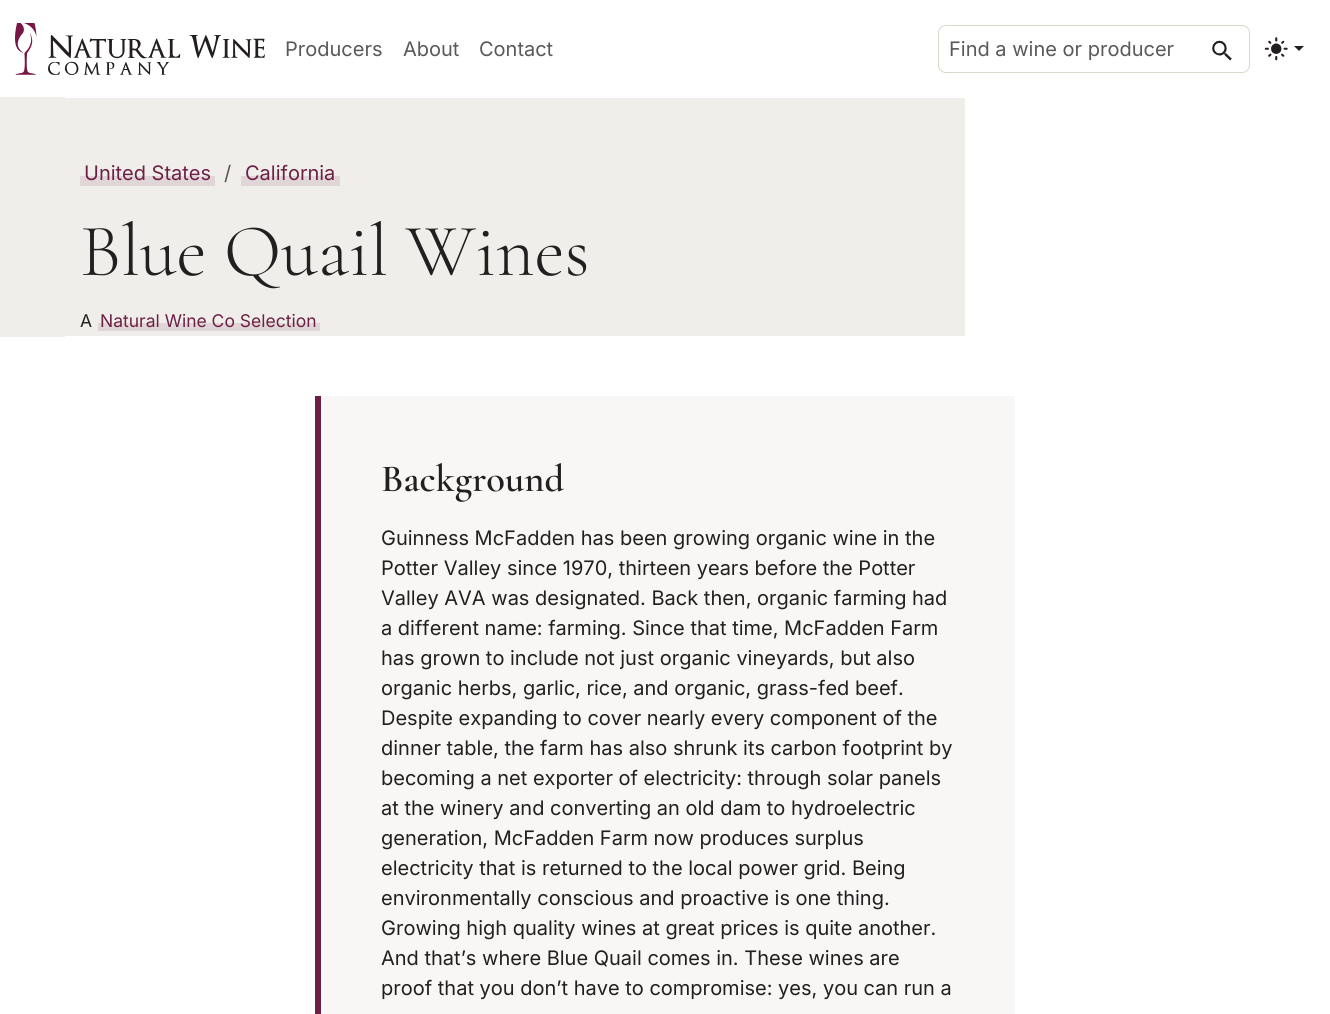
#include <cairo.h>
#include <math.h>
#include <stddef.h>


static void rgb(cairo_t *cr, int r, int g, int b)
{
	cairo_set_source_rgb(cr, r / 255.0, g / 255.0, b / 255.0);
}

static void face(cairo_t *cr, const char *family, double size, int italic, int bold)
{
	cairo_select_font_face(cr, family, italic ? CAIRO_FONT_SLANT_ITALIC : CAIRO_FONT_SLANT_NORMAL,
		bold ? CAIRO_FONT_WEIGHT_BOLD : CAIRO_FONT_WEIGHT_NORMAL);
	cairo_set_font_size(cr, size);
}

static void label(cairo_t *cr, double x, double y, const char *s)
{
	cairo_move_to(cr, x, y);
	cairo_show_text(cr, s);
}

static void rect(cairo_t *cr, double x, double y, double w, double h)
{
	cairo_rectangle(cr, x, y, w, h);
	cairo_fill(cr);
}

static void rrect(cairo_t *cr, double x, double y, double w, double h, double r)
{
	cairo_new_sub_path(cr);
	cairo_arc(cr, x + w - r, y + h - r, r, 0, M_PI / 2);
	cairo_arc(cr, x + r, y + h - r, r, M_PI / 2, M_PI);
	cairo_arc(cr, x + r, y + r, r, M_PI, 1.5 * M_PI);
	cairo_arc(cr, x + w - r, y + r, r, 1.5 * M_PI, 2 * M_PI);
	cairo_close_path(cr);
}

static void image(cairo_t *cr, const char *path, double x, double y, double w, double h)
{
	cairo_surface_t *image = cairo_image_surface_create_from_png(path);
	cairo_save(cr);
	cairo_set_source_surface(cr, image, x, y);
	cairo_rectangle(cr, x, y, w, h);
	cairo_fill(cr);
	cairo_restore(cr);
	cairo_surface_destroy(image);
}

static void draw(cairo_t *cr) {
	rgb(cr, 255, 255, 255);
	cairo_paint(cr);
	image(cr, "image0.png", 15, 23, 250, 52);
	face(cr, "Inter", 20, 0, 0);
	rgb(cr, 89, 89, 89);
	label(cr, 285, 56, "Producers");
	label(cr, 403, 56, "About");
	label(cr, 479, 56, "Contact");
	rrect(cr, 938.5, 25.5, 311, 47, 7.5);
	rgb(cr, 220, 215, 204);
	cairo_set_line_width(cr, 1);
	cairo_stroke(cr);
	rgb(cr, 89, 89, 89);
	label(cr, 949, 56, "Find a wine or producer");
	image(cr, "image1.png", 1212, 40, 20, 21);
	image(cr, "image2.png", 1264, 37, 24, 24);
	rgb(cr, 35, 31, 32);
	cairo_new_path(cr);
	cairo_move_to(cr, 1294, 46);
	cairo_line_to(cr, 1304, 46);
	cairo_line_to(cr, 1299, 51);
	cairo_close_path(cr);
	cairo_fill(cr);
	rgb(cr, 240, 238, 234);
	rect(cr, 65, 98, 900, 238);
	rect(cr, 0, 97, 65, 240);
	rgb(cr, 225, 214, 215);
	rect(cr, 80, 176, 135, 10);
	rgb(cr, 109, 32, 68);
	label(cr, 84, 180, "United States");
	rgb(cr, 86, 83, 83);
	label(cr, 224, 180, "/");
	rgb(cr, 225, 214, 215);
	rect(cr, 241, 176, 99, 10);
	rgb(cr, 109, 32, 68);
	label(cr, 245, 180, "California");
	face(cr, "Cormorant Garamond Light", 74.5, 0, 0);
	rgb(cr, 35, 31, 32);
	label(cr, 80, 275, "Blue Quail Wines");
	face(cr, "Inter", 17.5, 0, 0);
	label(cr, 80, 327, "A");
	rgb(cr, 225, 214, 215);
	rect(cr, 98, 323, 222, 8);
	rgb(cr, 109, 32, 68);
	label(cr, 100, 327, "Natural Wine Co Selection");
	rgb(cr, 248, 247, 245);
	rect(cr, 321, 396, 694, 618);
	rgb(cr, 109, 32, 68);
	rect(cr, 315, 396, 6, 618);
	face(cr, "Cormorant Garamond SemiBold", 38.5, 0, 0);
	rgb(cr, 35, 31, 32);
	label(cr, 381, 491, "Background");
	face(cr, "Inter", 20, 0, 0);
	label(cr, 381, 545, "Guinness McFadden has been growing organic wine in the");
	label(cr, 381, 575, "Potter Valley since 1970, thirteen years before the Potter");
	label(cr, 381, 605, "Valley AVA was designated. Back then, organic farming had");
	label(cr, 381, 635, "a different name: farming. Since that time, McFadden Farm");
	label(cr, 381, 665, "has grown to include not just organic vineyards, but also");
	label(cr, 381, 695, "organic herbs, garlic, rice, and organic, grass-fed beef.");
	label(cr, 381, 725, "Despite expanding to cover nearly every component of the");
	label(cr, 381, 755, "dinner table, the farm has also shrunk its carbon footprint by");
	label(cr, 381, 785, "becoming a net exporter of electricity: through solar panels");
	label(cr, 381, 815, "at the winery and converting an old dam to hydroelectric");
	label(cr, 381, 845, "generation, McFadden Farm now produces surplus");
	label(cr, 381, 875, "electricity that is returned to the local power grid. Being");
	label(cr, 381, 905, "environmentally conscious and proactive is one thing.");
	label(cr, 381, 935, "Growing high quality wines at great prices is quite another.");
	label(cr, 381, 965, "And that’s where Blue Quail comes in. These wines are");
	label(cr, 381, 995, "proof that you don’t have to compromise: yes, you can run a");
}

int main(void) {
	cairo_surface_t *surface = cairo_image_surface_create(CAIRO_FORMAT_RGB24, 1330, 1014);
	cairo_t *cr = cairo_create(surface);
	cairo_font_options_t *options = cairo_font_options_create();
	cairo_font_options_set_hint_metrics(options, CAIRO_HINT_METRICS_OFF);
	cairo_font_options_set_hint_style(options, CAIRO_HINT_STYLE_NONE);
	cairo_set_font_options(cr, options);
	cairo_set_miter_limit(cr, 4);
	draw(cr);
	cairo_surface_write_to_png(surface, "render.png");
	cairo_font_options_destroy(options);
	cairo_destroy(cr);
	cairo_surface_destroy(surface);
	return 0;
}
